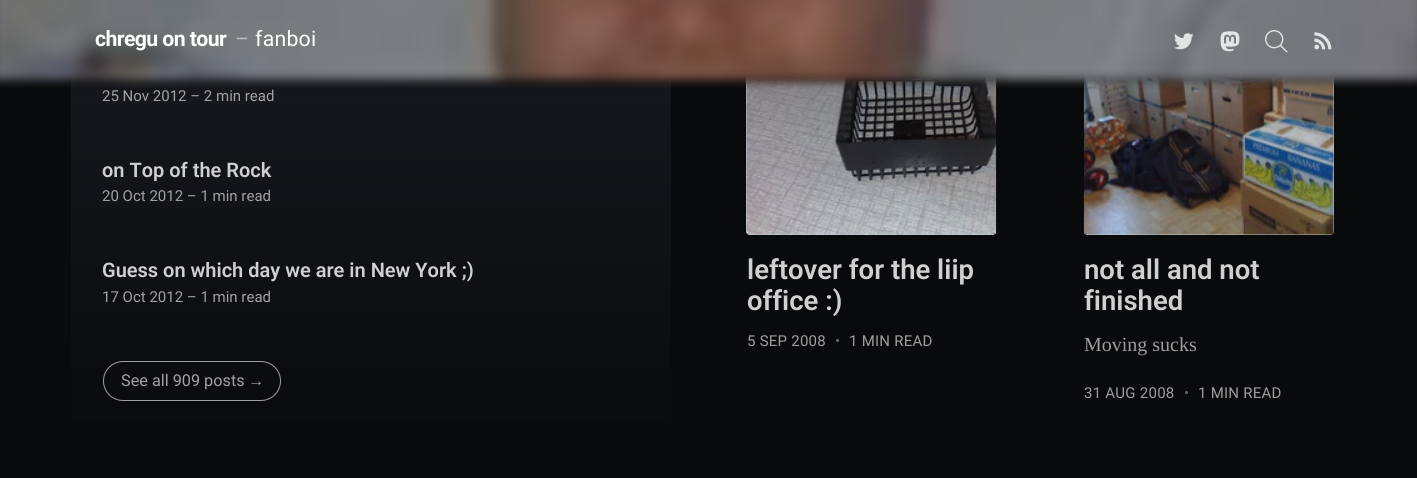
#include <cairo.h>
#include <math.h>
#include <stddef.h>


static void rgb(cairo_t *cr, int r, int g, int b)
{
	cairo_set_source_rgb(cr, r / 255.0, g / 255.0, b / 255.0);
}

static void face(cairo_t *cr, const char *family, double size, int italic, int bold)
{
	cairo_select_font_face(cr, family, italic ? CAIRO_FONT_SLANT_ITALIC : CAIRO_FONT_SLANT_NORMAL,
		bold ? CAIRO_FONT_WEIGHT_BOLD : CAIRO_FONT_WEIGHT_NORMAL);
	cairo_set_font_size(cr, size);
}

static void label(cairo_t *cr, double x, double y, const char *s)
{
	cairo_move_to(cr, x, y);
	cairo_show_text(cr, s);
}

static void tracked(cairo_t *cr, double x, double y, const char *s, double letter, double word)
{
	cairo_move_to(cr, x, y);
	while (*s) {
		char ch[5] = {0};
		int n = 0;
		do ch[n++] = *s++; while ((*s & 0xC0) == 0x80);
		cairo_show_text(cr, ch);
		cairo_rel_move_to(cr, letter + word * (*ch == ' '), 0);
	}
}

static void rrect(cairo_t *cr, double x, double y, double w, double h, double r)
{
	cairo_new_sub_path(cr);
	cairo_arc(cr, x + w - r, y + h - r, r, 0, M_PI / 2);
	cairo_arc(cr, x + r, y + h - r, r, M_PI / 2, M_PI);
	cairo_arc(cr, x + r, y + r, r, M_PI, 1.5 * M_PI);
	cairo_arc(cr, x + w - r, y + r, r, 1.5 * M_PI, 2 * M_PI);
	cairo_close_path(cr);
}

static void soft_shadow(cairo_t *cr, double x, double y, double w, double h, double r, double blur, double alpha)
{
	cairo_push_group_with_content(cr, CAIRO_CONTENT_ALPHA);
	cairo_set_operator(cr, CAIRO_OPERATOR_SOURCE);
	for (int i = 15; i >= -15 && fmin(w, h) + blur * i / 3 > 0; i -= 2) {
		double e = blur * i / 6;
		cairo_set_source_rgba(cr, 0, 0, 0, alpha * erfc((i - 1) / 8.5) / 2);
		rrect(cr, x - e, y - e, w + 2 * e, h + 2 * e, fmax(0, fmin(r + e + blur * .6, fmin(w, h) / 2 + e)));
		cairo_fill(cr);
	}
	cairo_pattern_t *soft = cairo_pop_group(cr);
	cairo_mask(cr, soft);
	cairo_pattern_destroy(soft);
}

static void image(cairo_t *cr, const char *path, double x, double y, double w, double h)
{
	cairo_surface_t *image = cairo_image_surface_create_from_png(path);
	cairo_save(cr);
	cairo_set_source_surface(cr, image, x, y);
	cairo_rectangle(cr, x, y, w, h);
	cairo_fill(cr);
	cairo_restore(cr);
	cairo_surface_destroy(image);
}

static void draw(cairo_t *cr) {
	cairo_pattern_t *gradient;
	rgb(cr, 9, 10, 11);
	cairo_paint(cr);
	gradient = cairo_pattern_create_linear(371, -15, 371, 435);
	cairo_pattern_add_color_stop_rgba(gradient, 0, 0.098, 0.106, 0.122, 1);
	cairo_pattern_add_color_stop_rgba(gradient, 1, 0.035, 0.039, 0.043, 1);
	cairo_set_source(cr, gradient);
	cairo_pattern_destroy(gradient);
	rrect(cr, 71, -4, 600, 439, 4);
	cairo_fill(cr);
	rgb(cr, 197, 210, 217);
	rrect(cr, 746, -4, 250, 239, 4);
	cairo_fill(cr);
	image(cr, "image5.png", 746, 69, 251, 166);
	rrect(cr, 1084, -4, 250, 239, 4);
	cairo_fill(cr);
	image(cr, "image6.png", 1083, 69, 251, 166);
	rgb(cr, 0, 0, 0);
	soft_shadow(cr, -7, -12, 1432, 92, 0, 5, 1);
	image(cr, "image0.png", 0, 0, 1417, 88);
	face(cr, "Roboto", 21.25, 0, 1);
	rgb(cr, 255, 255, 255);
	tracked(cr, 95, 46, "chregu on tour", -0.6, 0);
	face(cr, "Roboto", 21.25, 0, 0);
	rgb(cr, 187, 189, 190);
	tracked(cr, 235, 46, "–", 0.25, 0);
	rgb(cr, 255, 255, 255);
	tracked(cr, 255, 46, "fanboi", 0.25, 0);
	image(cr, "image1.png", 1174, 33, 20, 17);
	image(cr, "image2.png", 1220, 31, 20, 21);
	image(cr, "image3.png", 1265, 30, 23, 23);
	image(cr, "image4.png", 1314, 32, 18, 18);
	face(cr, "Roboto", 15, 0, 0);
	rgb(cr, 161, 162, 163);
	label(cr, 102, 101, "25 Nov 2012 – 2 min read");
	face(cr, "Roboto SemiBold", 20, 0, 0);
	rgb(cr, 208, 208, 209);
	label(cr, 102, 177, "on Top of the Rock");
	face(cr, "Roboto", 15, 0, 0);
	rgb(cr, 161, 162, 163);
	label(cr, 102, 201, "20 Oct 2012 – 1 min read");
	face(cr, "Roboto SemiBold", 20, 0, 0);
	rgb(cr, 208, 208, 209);
	label(cr, 102, 277, "Guess on which day we are in New York ;)");
	face(cr, "Roboto", 15, 0, 0);
	rgb(cr, 161, 162, 163);
	label(cr, 102, 302, "17 Oct 2012 – 1 min read");
	rrect(cr, 103.5, 361.5, 177, 39, 19.5);
	rgb(cr, 157, 158, 158);
	cairo_set_line_width(cr, 1);
	cairo_stroke(cr);
	face(cr, "Roboto", 16.25, 0, 0);
	rgb(cr, 161, 162, 163);
	label(cr, 121, 386, "See all 909 posts");
	face(cr, "Liberation Sans", 16.25, 0, 0);
	label(cr, 248, 386, "→");
	face(cr, "Roboto SemiBold", 27.5, 0, 0);
	rgb(cr, 208, 208, 209);
	label(cr, 747, 279, "leftover for the liip");
	label(cr, 747, 310, "office :)");
	face(cr, "Roboto", 15, 0, 0);
	rgb(cr, 157, 157, 157);
	tracked(cr, 747, 346, "5 SEP 2008", 0.25, 0);
	rgb(cr, 98, 98, 99);
	tracked(cr, 835, 346, "•", 0.25, 0);
	rgb(cr, 157, 157, 157);
	tracked(cr, 849, 346, "1 MIN READ", 0.25, 0);
	face(cr, "Roboto SemiBold", 27.5, 0, 0);
	rgb(cr, 208, 208, 209);
	label(cr, 1084, 279, "not all and not");
	label(cr, 1084, 310, "finished");
	face(cr, "Liberation Serif", 20, 0, 0);
	rgb(cr, 157, 157, 157);
	label(cr, 1084, 351, "Moving sucks");
	face(cr, "Roboto", 15, 0, 0);
	tracked(cr, 1084, 398, "31 AUG 2008", 0.25, 0);
	rgb(cr, 98, 98, 99);
	tracked(cr, 1184, 398, "•", 0.25, 0);
	rgb(cr, 157, 157, 157);
	tracked(cr, 1198, 398, "1 MIN READ", 0.25, 0);
}

int main(void) {
	cairo_surface_t *surface = cairo_image_surface_create(CAIRO_FORMAT_RGB24, 1417, 478);
	cairo_t *cr = cairo_create(surface);
	cairo_font_options_t *options = cairo_font_options_create();
	cairo_font_options_set_hint_metrics(options, CAIRO_HINT_METRICS_OFF);
	cairo_font_options_set_hint_style(options, CAIRO_HINT_STYLE_NONE);
	cairo_set_font_options(cr, options);
	cairo_set_miter_limit(cr, 4);
	draw(cr);
	cairo_surface_write_to_png(surface, "render.png");
	cairo_font_options_destroy(options);
	cairo_destroy(cr);
	cairo_surface_destroy(surface);
	return 0;
}
